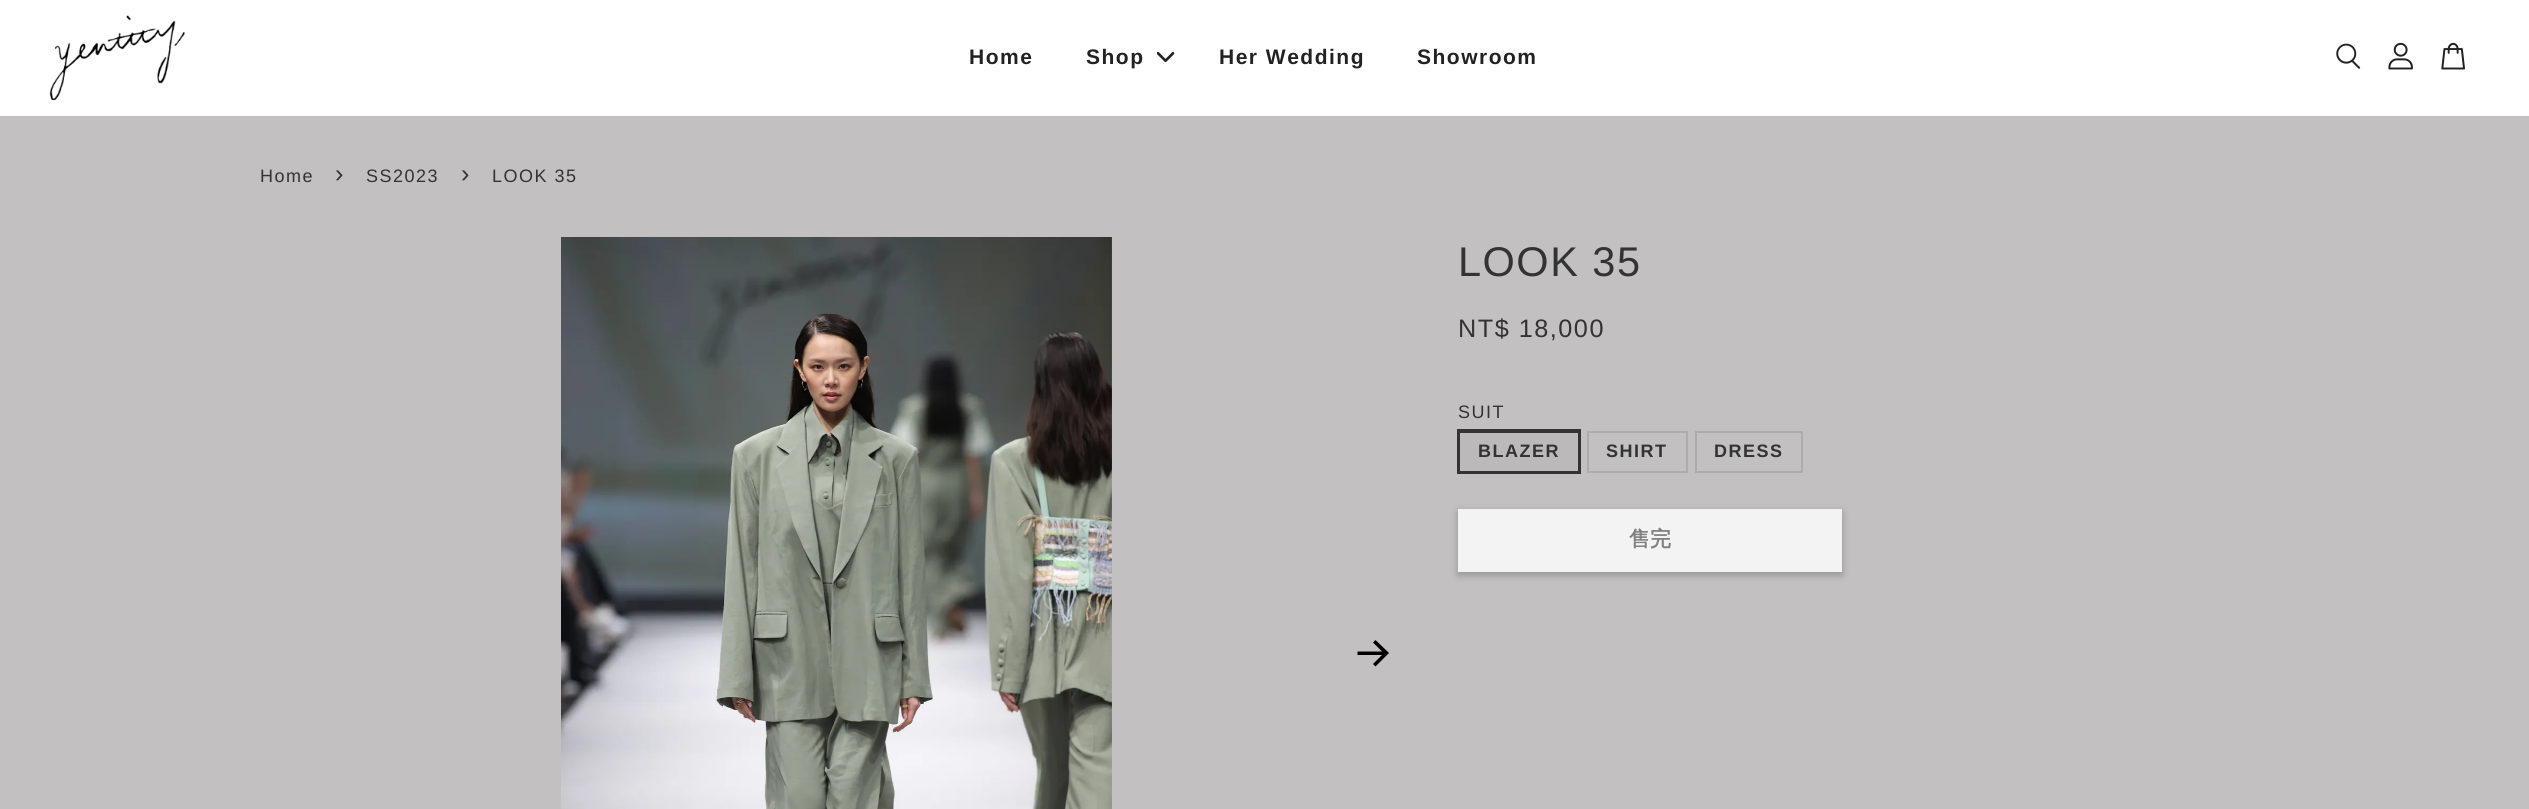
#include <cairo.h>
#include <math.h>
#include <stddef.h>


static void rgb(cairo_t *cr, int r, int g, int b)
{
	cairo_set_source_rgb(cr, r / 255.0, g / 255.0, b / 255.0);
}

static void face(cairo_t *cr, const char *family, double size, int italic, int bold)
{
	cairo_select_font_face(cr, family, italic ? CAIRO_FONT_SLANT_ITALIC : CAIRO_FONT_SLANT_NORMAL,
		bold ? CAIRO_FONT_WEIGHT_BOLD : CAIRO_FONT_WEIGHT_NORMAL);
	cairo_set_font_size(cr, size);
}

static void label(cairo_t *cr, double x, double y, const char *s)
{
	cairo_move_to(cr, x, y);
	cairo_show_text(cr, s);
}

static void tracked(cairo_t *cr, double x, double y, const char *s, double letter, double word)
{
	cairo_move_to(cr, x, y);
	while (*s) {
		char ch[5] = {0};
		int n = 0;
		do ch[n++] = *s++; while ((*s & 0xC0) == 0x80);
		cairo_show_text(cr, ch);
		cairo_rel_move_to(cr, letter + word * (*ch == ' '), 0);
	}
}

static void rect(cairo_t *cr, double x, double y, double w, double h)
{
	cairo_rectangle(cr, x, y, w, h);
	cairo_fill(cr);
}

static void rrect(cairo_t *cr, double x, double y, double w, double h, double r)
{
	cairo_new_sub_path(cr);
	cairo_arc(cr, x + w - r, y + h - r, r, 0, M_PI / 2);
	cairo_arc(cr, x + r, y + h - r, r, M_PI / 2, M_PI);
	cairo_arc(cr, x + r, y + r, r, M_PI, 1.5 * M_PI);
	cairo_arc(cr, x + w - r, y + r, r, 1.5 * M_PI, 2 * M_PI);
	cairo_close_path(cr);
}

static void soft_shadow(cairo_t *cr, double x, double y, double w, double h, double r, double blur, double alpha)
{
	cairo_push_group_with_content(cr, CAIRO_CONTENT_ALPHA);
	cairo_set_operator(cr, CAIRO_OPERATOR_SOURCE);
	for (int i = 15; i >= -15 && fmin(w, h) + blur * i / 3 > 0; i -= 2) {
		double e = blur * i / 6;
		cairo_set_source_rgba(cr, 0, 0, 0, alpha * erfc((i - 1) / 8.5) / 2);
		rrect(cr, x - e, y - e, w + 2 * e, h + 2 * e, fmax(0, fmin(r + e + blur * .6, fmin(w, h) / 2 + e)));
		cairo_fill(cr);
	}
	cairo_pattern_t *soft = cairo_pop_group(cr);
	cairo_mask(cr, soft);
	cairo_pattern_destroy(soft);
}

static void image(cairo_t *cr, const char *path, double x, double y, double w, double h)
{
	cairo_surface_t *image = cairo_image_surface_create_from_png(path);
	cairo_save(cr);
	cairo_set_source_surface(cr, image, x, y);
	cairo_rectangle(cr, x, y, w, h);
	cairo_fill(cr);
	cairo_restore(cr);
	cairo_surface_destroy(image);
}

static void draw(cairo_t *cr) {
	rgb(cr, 194, 192, 192);
	cairo_paint(cr);
	rgb(cr, 255, 255, 255);
	rect(cr, 0, 0, 2529, 116);
	image(cr, "image0.png", 49, 15, 136, 86);
	face(cr, "Liberation Sans", 21, 0, 1);
	rgb(cr, 34, 34, 34);
	tracked(cr, 969, 64, "Home", 1.5, 0);
	tracked(cr, 1086, 64, "Shop", 1.5, 0);
	image(cr, "image1.png", 1157, 51, 18, 12);
	tracked(cr, 1219, 64, "Her Wedding", 1.5, 0);
	tracked(cr, 1417, 64, "Showroom", 1.5, 0);
	image(cr, "image2.png", 2336, 43, 25, 26);
	image(cr, "image3.png", 2388, 42, 25, 28);
	image(cr, "image4.png", 2441, 42, 24, 28);
	face(cr, "Liberation Sans", 18, 0, 0);
	rgb(cr, 51, 51, 51);
	tracked(cr, 260, 182, "Home", 1.5, 0);
	face(cr, "Liberation Sans", 25.25, 0, 0);
	tracked(cr, 335, 182, "›", 1.5, 0);
	face(cr, "Liberation Sans", 18, 0, 0);
	tracked(cr, 366, 182, "SS2023", 1.5, 0);
	face(cr, "Liberation Sans", 25.25, 0, 0);
	tracked(cr, 461, 182, "›", 1.5, 0);
	face(cr, "Liberation Sans", 18, 0, 0);
	tracked(cr, 492, 182, "LOOK 35", 1.5, 0);
	image(cr, "image5.png", 561, 237, 551, 572);
	rgb(cr, 0, 0, 0);
	cairo_new_path(cr);
	cairo_move_to(cr, 1375.5, 640);
	cairo_line_to(cr, 1373, 642.5);
	cairo_line_to(cr, 1382, 651.5);
	cairo_line_to(cr, 1357.5, 651.5);
	cairo_line_to(cr, 1357.5, 655);
	cairo_line_to(cr, 1382, 655);
	cairo_line_to(cr, 1373, 664);
	cairo_line_to(cr, 1375.5, 666.5);
	cairo_line_to(cr, 1389, 653);
	cairo_close_path(cr);
	cairo_fill(cr);
	face(cr, "Liberation Sans", 41.5, 0, 0);
	rgb(cr, 51, 51, 51);
	tracked(cr, 1458, 276, "LOOK 35", 1.5, 0);
	face(cr, "Liberation Sans", 25.25, 0, 0);
	tracked(cr, 1458, 337, "NT$ 18,000", 1.5, 0);
	face(cr, "Liberation Sans", 18, 0, 0);
	tracked(cr, 1458, 418, "SUIT", 1.5, 0);
	cairo_rectangle(cr, 1458, 430, 122, 43);
	cairo_stroke(cr);
	cairo_set_source_rgba(cr, 0.2, 0.2, 0.2, 0.05);
	cairo_rectangle(cr, 1459, 432, 120, 40);
	cairo_fill_preserve(cr);
	rgb(cr, 51, 51, 51);
	cairo_stroke(cr);
	face(cr, "Liberation Sans", 18, 0, 1);
	tracked(cr, 1478, 457, "BLAZER", 1.5, 0);
	cairo_rectangle(cr, 1588, 432, 99, 40);
	rgb(cr, 173, 171, 171);
	cairo_stroke(cr);
	rgb(cr, 51, 51, 51);
	tracked(cr, 1606, 457, "SHIRT", 1.5, 0);
	cairo_rectangle(cr, 1696, 432, 106, 40);
	rgb(cr, 173, 171, 171);
	cairo_stroke(cr);
	rgb(cr, 51, 51, 51);
	tracked(cr, 1714, 457, "DRESS", 1.5, 0);
	rgb(cr, 0, 0, 0);
	soft_shadow(cr, 1458, 512, 384, 63, 0, 4, 0.25);
	rgb(cr, 243, 243, 243);
	rect(cr, 1458, 509, 384, 63);
	face(cr, "WenQuanYi Zen Hei", 21, 0, 1);
	rgb(cr, 128, 128, 128);
	label(cr, 1629, 546, "售完");
}

int main(void) {
	cairo_surface_t *surface = cairo_image_surface_create(CAIRO_FORMAT_RGB24, 2529, 809);
	cairo_t *cr = cairo_create(surface);
	cairo_font_options_t *options = cairo_font_options_create();
	cairo_font_options_set_hint_metrics(options, CAIRO_HINT_METRICS_OFF);
	cairo_font_options_set_hint_style(options, CAIRO_HINT_STYLE_NONE);
	cairo_set_font_options(cr, options);
	cairo_set_miter_limit(cr, 4);
	draw(cr);
	cairo_surface_write_to_png(surface, "render.png");
	cairo_font_options_destroy(options);
	cairo_destroy(cr);
	cairo_surface_destroy(surface);
	return 0;
}
